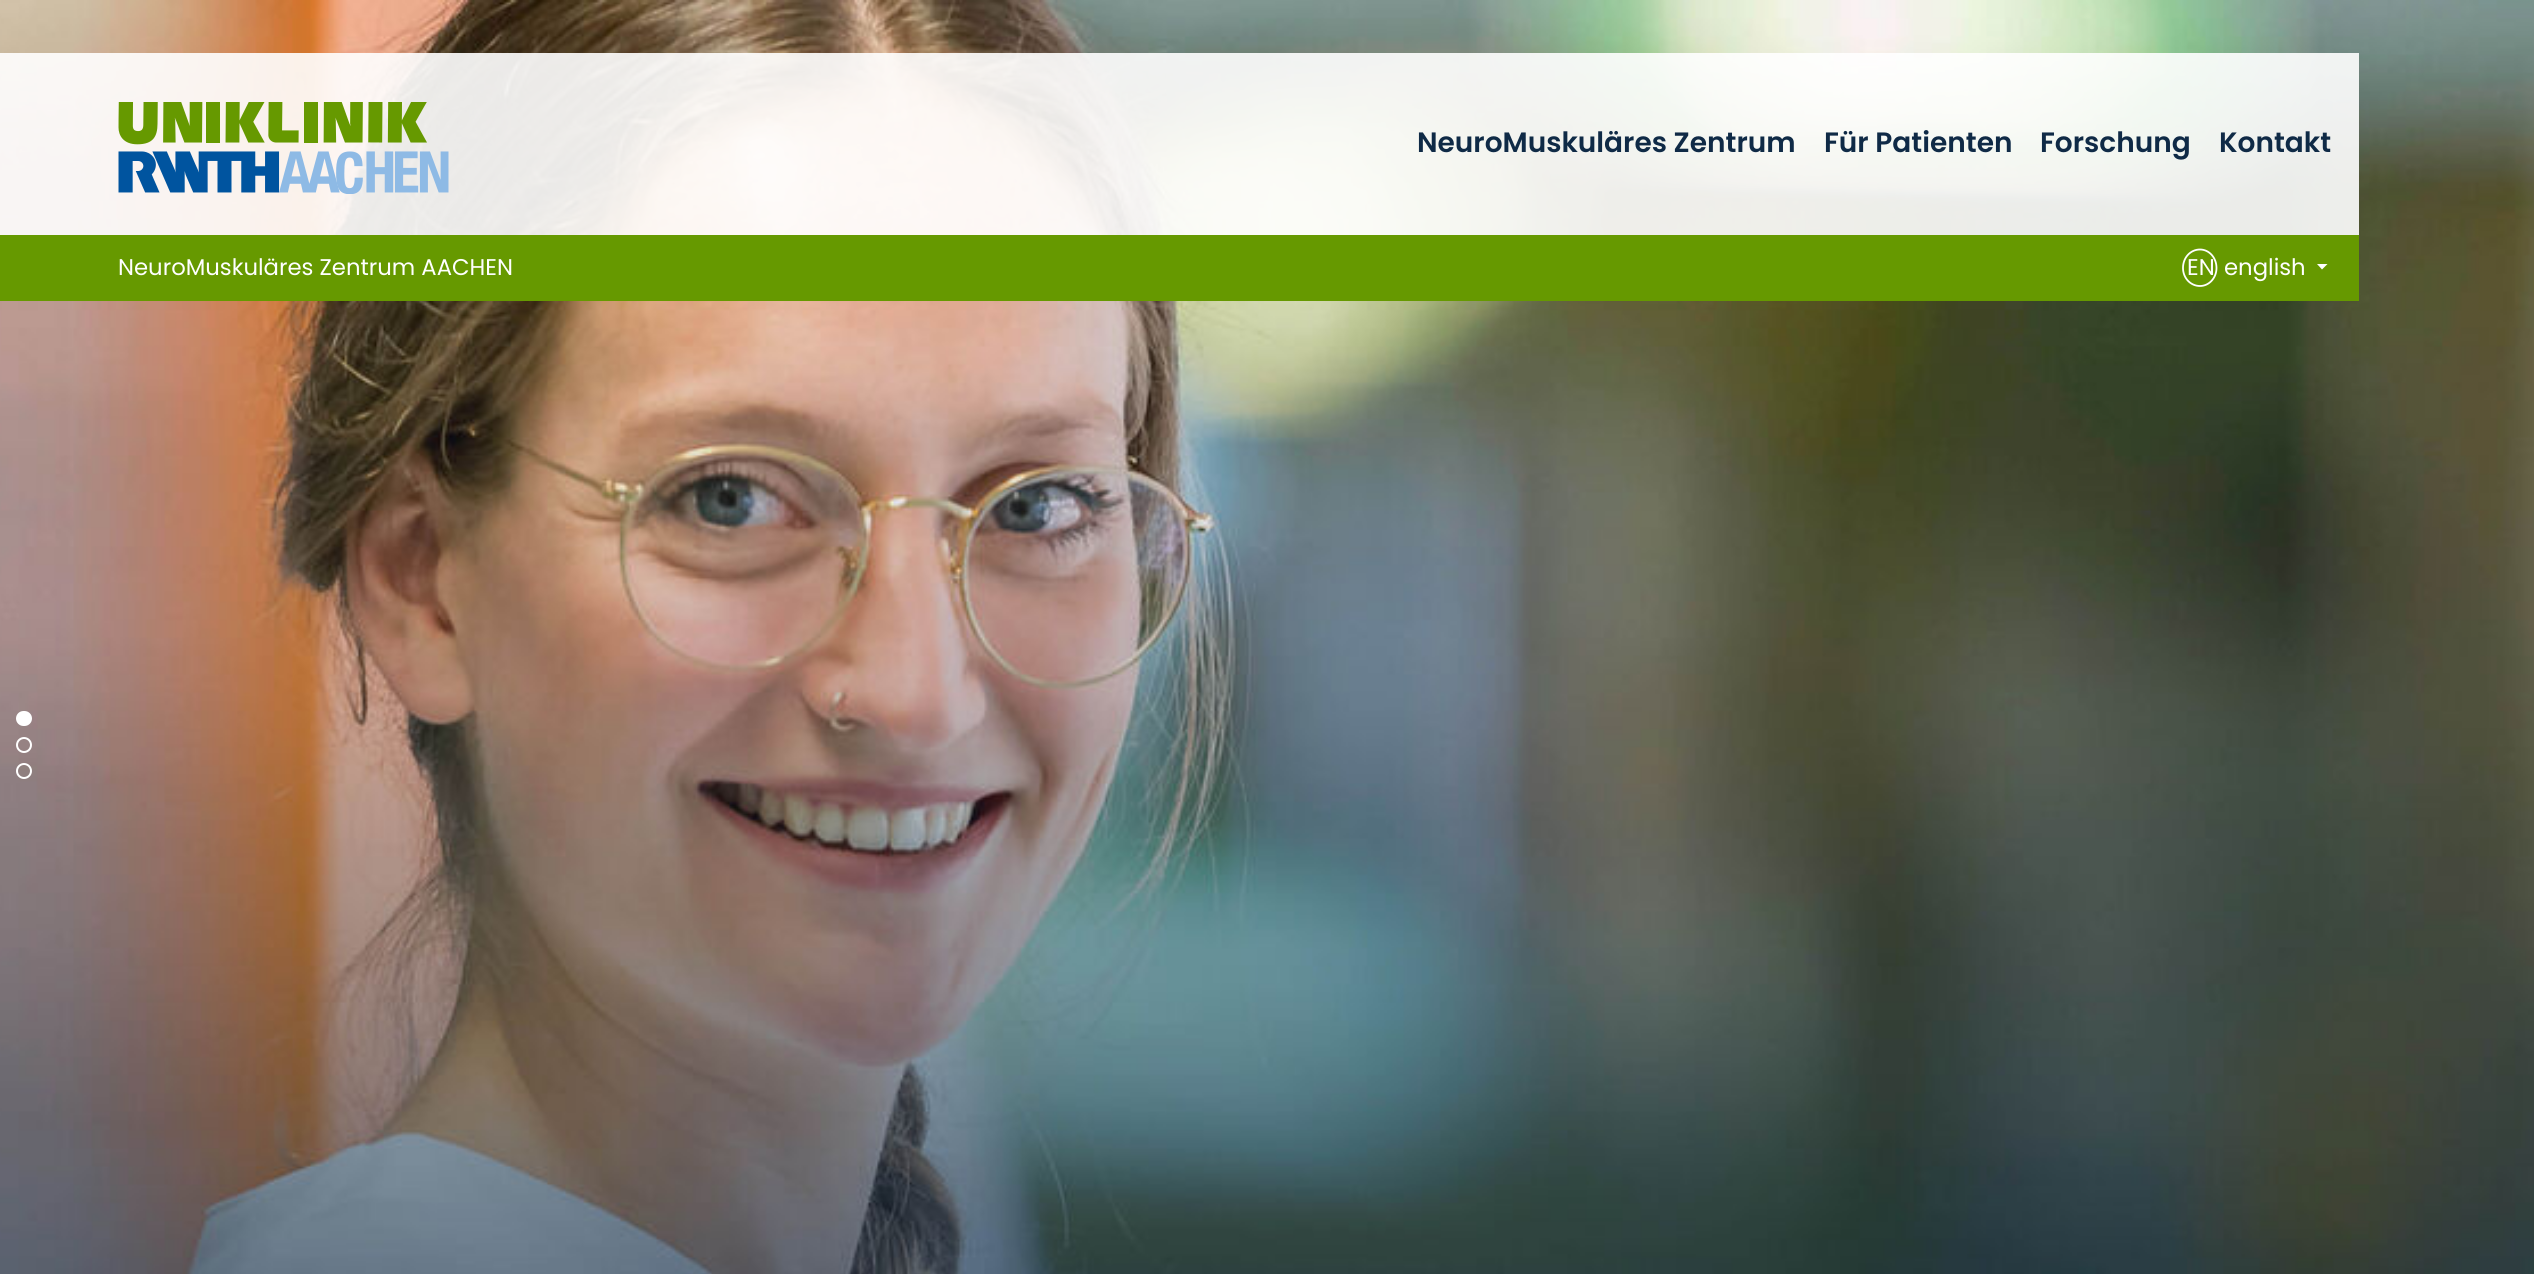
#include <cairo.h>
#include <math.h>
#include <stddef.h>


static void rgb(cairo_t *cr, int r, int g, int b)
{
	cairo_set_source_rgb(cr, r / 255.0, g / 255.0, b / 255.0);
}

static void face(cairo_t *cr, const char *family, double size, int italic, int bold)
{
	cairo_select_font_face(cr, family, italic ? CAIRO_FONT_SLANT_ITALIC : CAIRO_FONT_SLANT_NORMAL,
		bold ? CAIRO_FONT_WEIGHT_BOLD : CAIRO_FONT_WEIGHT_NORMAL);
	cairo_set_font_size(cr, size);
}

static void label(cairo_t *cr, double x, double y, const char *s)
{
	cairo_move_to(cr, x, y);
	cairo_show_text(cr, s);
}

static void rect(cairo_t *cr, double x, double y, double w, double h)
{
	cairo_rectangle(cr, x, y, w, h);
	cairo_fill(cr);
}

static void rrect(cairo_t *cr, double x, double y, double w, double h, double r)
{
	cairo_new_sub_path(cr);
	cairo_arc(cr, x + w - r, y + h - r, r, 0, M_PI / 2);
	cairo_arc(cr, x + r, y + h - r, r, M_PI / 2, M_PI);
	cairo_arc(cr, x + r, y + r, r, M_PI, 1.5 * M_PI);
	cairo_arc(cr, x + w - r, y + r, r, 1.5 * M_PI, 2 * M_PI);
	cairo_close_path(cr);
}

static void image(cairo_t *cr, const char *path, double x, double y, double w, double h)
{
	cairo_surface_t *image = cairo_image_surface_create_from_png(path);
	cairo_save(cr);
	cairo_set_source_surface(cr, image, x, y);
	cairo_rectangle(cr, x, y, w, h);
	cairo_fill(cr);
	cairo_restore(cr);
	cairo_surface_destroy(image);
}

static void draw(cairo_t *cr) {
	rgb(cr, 255, 255, 255);
	cairo_paint(cr);
	image(cr, "image0.png", 0, 0, 2534, 1274);
	rgb(cr, 255, 255, 255);
	rrect(cr, 17, 712, 14, 13, 6.5);
	cairo_fill_preserve(cr);
	cairo_stroke(cr);
	cairo_arc(cr, 24, 745, 7, 0, 2 * M_PI);
	cairo_stroke(cr);
	cairo_arc(cr, 24, 771, 7, 0, 2 * M_PI);
	cairo_stroke(cr);
	cairo_set_source_rgba(cr, 1, 1, 1, 0.9);
	rect(cr, 0, 53, 2359, 182);
	image(cr, "image1.png", 118, 102, 331, 92);
	face(cr, "Poppins SemiBold", 28, 0, 0);
	rgb(cr, 15, 42, 70);
	label(cr, 1417, 152, "NeuroMuskuläres Zentrum");
	label(cr, 1824, 152, "Für Patienten");
	label(cr, 2040, 152, "Forschung");
	label(cr, 2219, 152, "Kontakt");
	rgb(cr, 102, 153, 0);
	rect(cr, 0, 235, 2359, 66);
	face(cr, "Poppins", 22.75, 0, 0);
	rgb(cr, 255, 255, 255);
	label(cr, 118, 275, "NeuroMuskuläres Zentrum AACHEN");
	cairo_new_path(cr);
	cairo_move_to(cr, 2200, 249.5);
	cairo_curve_to(cr, 2209, 249.5, 2216.5, 257.5, 2216.5, 268);
	cairo_curve_to(cr, 2216.5, 278, 2209, 286, 2200, 286);
	cairo_curve_to(cr, 2190.5, 286, 2183, 278, 2183, 268);
	cairo_curve_to(cr, 2183, 257.5, 2190.5, 249.5, 2200, 249.5);
	cairo_close_path(cr);
	cairo_set_line_width(cr, 1.8);
	cairo_stroke(cr);
	label(cr, 2187, 275, "EN");
	label(cr, 2224, 275, "english");
	cairo_new_path(cr);
	cairo_move_to(cr, 2317, 264);
	cairo_line_to(cr, 2327.5, 264);
	cairo_line_to(cr, 2322, 269.5);
	cairo_close_path(cr);
	cairo_fill(cr);
}

int main(void) {
	cairo_surface_t *surface = cairo_image_surface_create(CAIRO_FORMAT_RGB24, 2534, 1274);
	cairo_t *cr = cairo_create(surface);
	cairo_font_options_t *options = cairo_font_options_create();
	cairo_font_options_set_hint_metrics(options, CAIRO_HINT_METRICS_OFF);
	cairo_font_options_set_hint_style(options, CAIRO_HINT_STYLE_NONE);
	cairo_set_font_options(cr, options);
	cairo_set_miter_limit(cr, 4);
	draw(cr);
	cairo_surface_write_to_png(surface, "render.png");
	cairo_font_options_destroy(options);
	cairo_destroy(cr);
	cairo_surface_destroy(surface);
	return 0;
}
